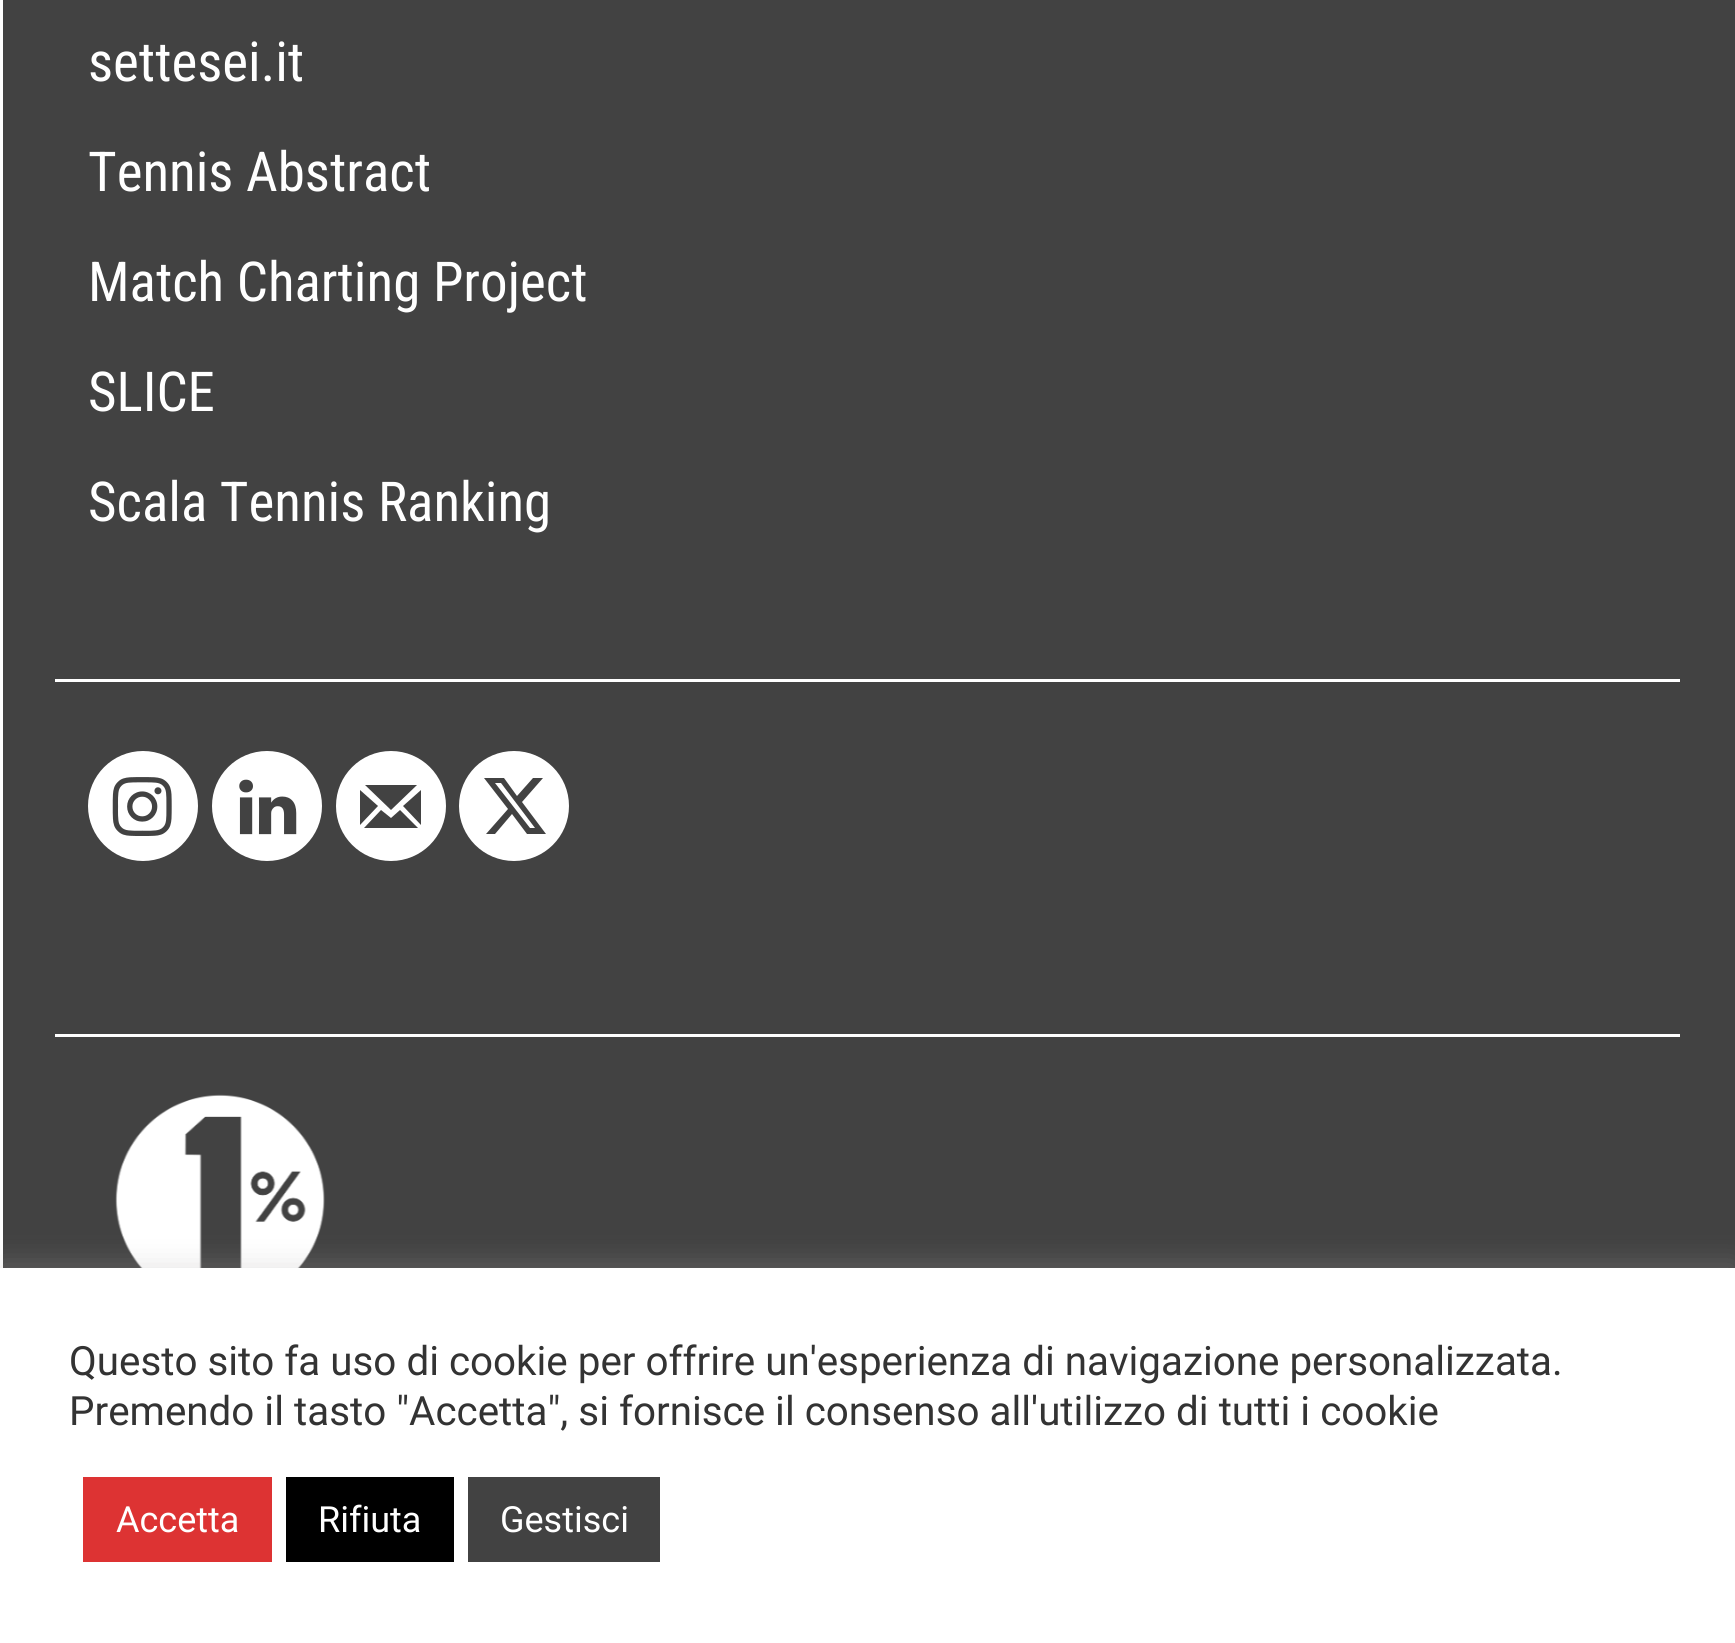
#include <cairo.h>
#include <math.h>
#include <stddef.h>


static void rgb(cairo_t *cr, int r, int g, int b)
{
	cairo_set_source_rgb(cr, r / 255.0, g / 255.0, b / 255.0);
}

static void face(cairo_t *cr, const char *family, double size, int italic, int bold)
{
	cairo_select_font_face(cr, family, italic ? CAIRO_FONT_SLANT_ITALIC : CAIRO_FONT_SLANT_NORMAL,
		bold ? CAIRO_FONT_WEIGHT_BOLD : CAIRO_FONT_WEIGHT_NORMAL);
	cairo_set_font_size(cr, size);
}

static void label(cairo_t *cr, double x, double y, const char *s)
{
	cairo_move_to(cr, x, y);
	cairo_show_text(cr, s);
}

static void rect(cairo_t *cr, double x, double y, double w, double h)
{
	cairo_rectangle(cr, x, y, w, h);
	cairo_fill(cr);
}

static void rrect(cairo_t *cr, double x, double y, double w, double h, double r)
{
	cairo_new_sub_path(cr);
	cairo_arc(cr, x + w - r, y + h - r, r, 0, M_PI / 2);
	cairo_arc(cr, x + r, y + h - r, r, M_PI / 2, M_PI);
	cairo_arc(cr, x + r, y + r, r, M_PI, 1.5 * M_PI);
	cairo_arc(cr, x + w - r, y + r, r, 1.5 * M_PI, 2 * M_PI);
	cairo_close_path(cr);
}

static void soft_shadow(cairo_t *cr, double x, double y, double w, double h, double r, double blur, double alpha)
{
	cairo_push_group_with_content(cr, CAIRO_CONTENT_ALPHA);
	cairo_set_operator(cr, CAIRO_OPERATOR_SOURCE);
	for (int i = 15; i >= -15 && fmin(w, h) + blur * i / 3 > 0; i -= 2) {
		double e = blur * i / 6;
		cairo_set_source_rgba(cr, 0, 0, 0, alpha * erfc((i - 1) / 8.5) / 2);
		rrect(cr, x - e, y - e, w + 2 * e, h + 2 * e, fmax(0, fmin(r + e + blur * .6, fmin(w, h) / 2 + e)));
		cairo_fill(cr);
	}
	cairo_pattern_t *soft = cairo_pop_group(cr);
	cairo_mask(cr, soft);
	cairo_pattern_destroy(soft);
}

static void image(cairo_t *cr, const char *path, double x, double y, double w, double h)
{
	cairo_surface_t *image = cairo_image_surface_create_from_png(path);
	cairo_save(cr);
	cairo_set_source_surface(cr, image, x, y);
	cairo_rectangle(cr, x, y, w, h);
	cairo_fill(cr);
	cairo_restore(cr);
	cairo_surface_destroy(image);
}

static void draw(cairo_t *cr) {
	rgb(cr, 255, 255, 255);
	cairo_paint(cr);
	rgb(cr, 66, 66, 66);
	rect(cr, 3, 0, 1732, 1268);
	face(cr, "Roboto Condensed", 55, 0, 0);
	rgb(cr, 255, 255, 255);
	label(cr, 88, 81, "settesei.it");
	label(cr, 88, 191, "Tennis Abstract");
	label(cr, 88, 301, "Match Charting Project");
	label(cr, 88, 411, "SLICE");
	label(cr, 88, 521, "Scala Tennis Ranking");
	rect(cr, 55, 679, 1625, 3);
	cairo_new_path(cr);
	cairo_arc(cr, 143, 806, 55, 0, 2 * M_PI);
	cairo_fill(cr);
	image(cr, "image0.png", 112, 777, 60, 59);
	cairo_arc(cr, 267, 806, 55, 0, 2 * M_PI);
	cairo_fill(cr);
	image(cr, "image1.png", 239, 779, 58, 56);
	cairo_arc(cr, 391, 806, 55, 0, 2 * M_PI);
	cairo_fill(cr);
	rgb(cr, 66, 66, 66);
	cairo_new_path(cr);
	cairo_move_to(cr, 400, 810);
	cairo_line_to(cr, 418, 828);
	cairo_line_to(cr, 364, 828);
	cairo_line_to(cr, 381, 810);
	cairo_line_to(cr, 391, 818);
	cairo_close_path(cr);
	cairo_move_to(cr, 365, 785);
	cairo_line_to(cr, 417, 785);
	cairo_line_to(cr, 391, 810);
	cairo_close_path(cr);
	cairo_move_to(cr, 403, 806);
	cairo_line_to(cr, 421, 790);
	cairo_line_to(cr, 421, 825);
	cairo_close_path(cr);
	cairo_move_to(cr, 360, 825);
	cairo_line_to(cr, 360, 790);
	cairo_line_to(cr, 378, 806);
	cairo_close_path(cr);
	cairo_fill(cr);
	rgb(cr, 255, 255, 255);
	cairo_arc(cr, 514, 806, 55, 0, 2 * M_PI);
	cairo_fill(cr);
	rgb(cr, 66, 66, 66);
	cairo_new_path(cr);
	cairo_move_to(cr, 533, 778);
	cairo_line_to(cr, 543, 778);
	cairo_line_to(cr, 522, 802);
	cairo_line_to(cr, 546, 834);
	cairo_line_to(cr, 527, 834);
	cairo_line_to(cr, 512, 814);
	cairo_line_to(cr, 495, 834);
	cairo_line_to(cr, 486, 834);
	cairo_line_to(cr, 508, 809);
	cairo_line_to(cr, 484, 778);
	cairo_line_to(cr, 504, 778);
	cairo_line_to(cr, 517, 796);
	cairo_close_path(cr);
	cairo_move_to(cr, 530, 828);
	cairo_line_to(cr, 535, 828);
	cairo_line_to(cr, 501, 783);
	cairo_line_to(cr, 495, 783);
	cairo_close_path(cr);
	cairo_fill(cr);
	rgb(cr, 255, 255, 255);
	rect(cr, 55, 1034, 1625, 3);
	image(cr, "image2.png", 115, 1094, 210, 174);
	rgb(cr, 172, 171, 171);
	soft_shadow(cr, 0, 1265, 1735, 377, 0, 14, 0.3);
	rgb(cr, 255, 255, 255);
	rect(cr, 0, 1268, 1735, 375);
	face(cr, "Roboto", 40.35, 0, 0);
	rgb(cr, 51, 51, 51);
	label(cr, 69, 1375, "Questo sito fa uso di cookie per offrire un'esperienza di navigazione personalizzata.");
	label(cr, 69, 1425, "Premendo il tasto \"Accetta\", si fornisce il consenso all'utilizzo di tutti i cookie");
	rgb(cr, 221, 51, 51);
	rect(cr, 83, 1477, 189, 85);
	face(cr, "Roboto", 36, 0, 0);
	rgb(cr, 255, 255, 255);
	label(cr, 116, 1532, "Accetta");
	rgb(cr, 0, 0, 0);
	rect(cr, 286, 1477, 168, 85);
	rgb(cr, 255, 255, 255);
	label(cr, 318, 1532, "Rifiuta");
	rgb(cr, 66, 66, 66);
	rect(cr, 468, 1477, 192, 85);
	rgb(cr, 255, 255, 255);
	label(cr, 500, 1532, "Gestisci");
}

int main(void) {
	cairo_surface_t *surface = cairo_image_surface_create(CAIRO_FORMAT_RGB24, 1735, 1643);
	cairo_t *cr = cairo_create(surface);
	cairo_font_options_t *options = cairo_font_options_create();
	cairo_font_options_set_hint_metrics(options, CAIRO_HINT_METRICS_OFF);
	cairo_font_options_set_hint_style(options, CAIRO_HINT_STYLE_NONE);
	cairo_set_font_options(cr, options);
	cairo_set_miter_limit(cr, 4);
	draw(cr);
	cairo_surface_write_to_png(surface, "render.png");
	cairo_font_options_destroy(options);
	cairo_destroy(cr);
	cairo_surface_destroy(surface);
	return 0;
}
